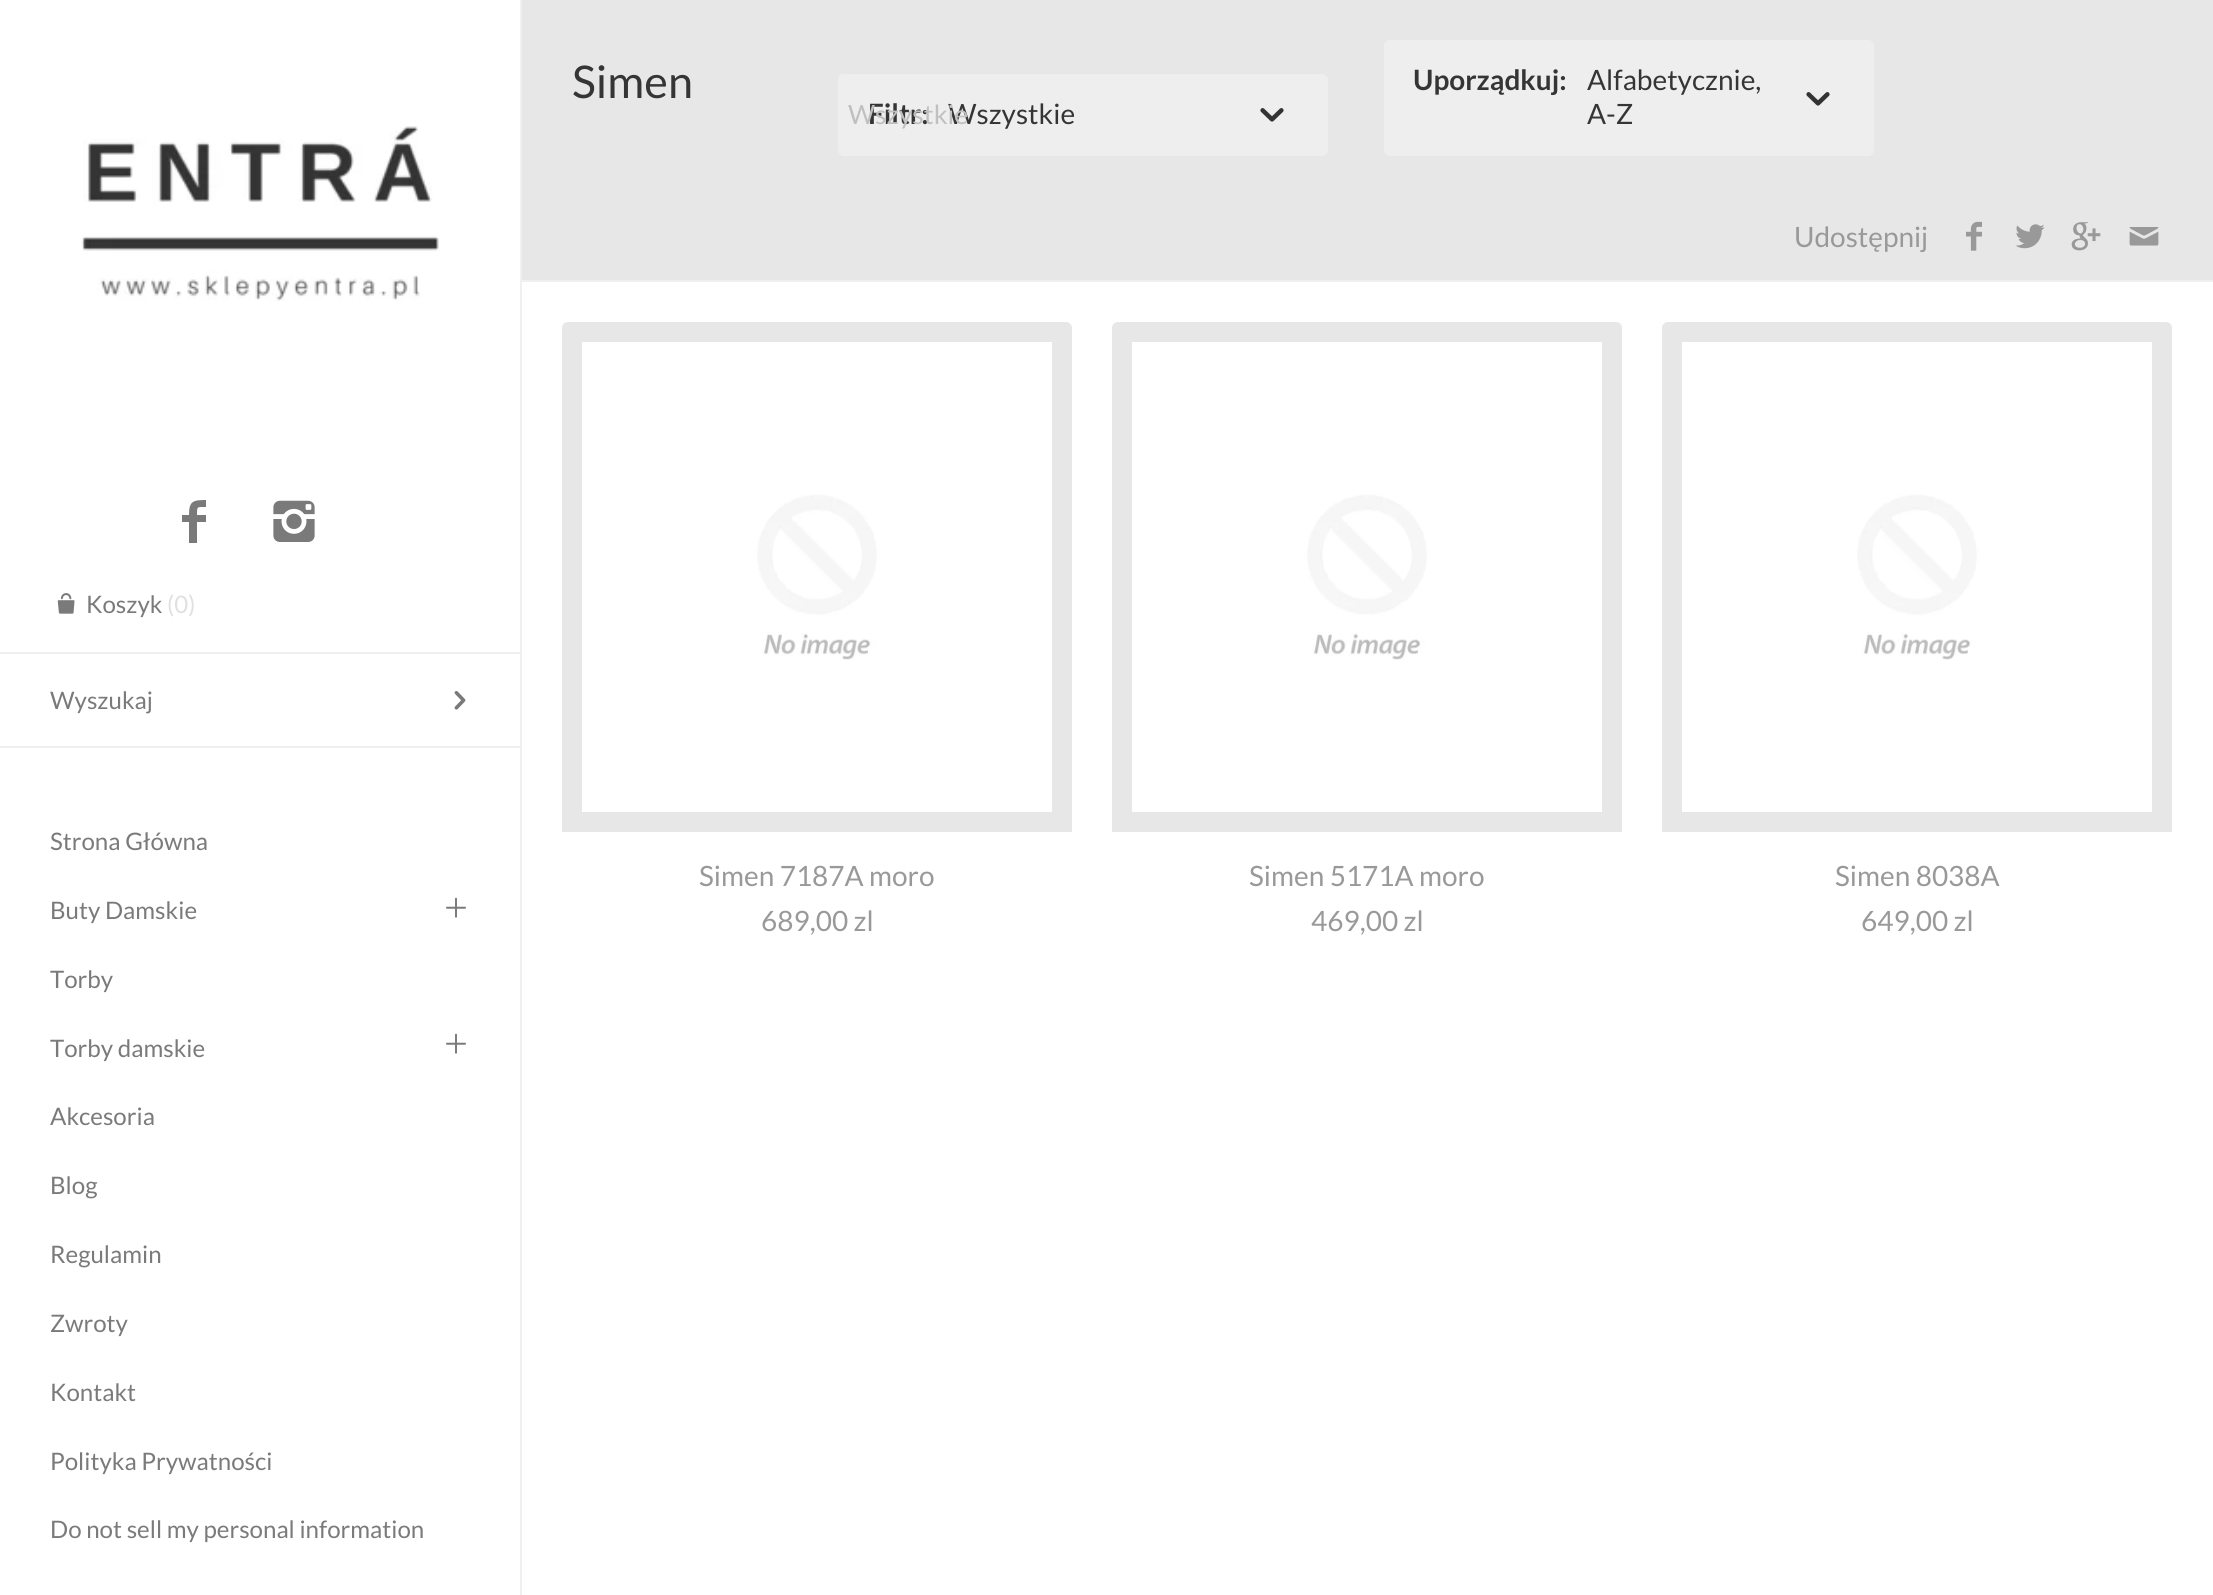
#include <cairo.h>
#include <math.h>
#include <stddef.h>


static void rgb(cairo_t *cr, int r, int g, int b)
{
	cairo_set_source_rgb(cr, r / 255.0, g / 255.0, b / 255.0);
}

static void face(cairo_t *cr, const char *family, double size, int italic, int bold)
{
	cairo_select_font_face(cr, family, italic ? CAIRO_FONT_SLANT_ITALIC : CAIRO_FONT_SLANT_NORMAL,
		bold ? CAIRO_FONT_WEIGHT_BOLD : CAIRO_FONT_WEIGHT_NORMAL);
	cairo_set_font_size(cr, size);
}

static void label(cairo_t *cr, double x, double y, const char *s)
{
	cairo_move_to(cr, x, y);
	cairo_show_text(cr, s);
}

static void rect(cairo_t *cr, double x, double y, double w, double h)
{
	cairo_rectangle(cr, x, y, w, h);
	cairo_fill(cr);
}

static void rrect(cairo_t *cr, double x, double y, double w, double h, double r)
{
	cairo_new_sub_path(cr);
	cairo_arc(cr, x + w - r, y + h - r, r, 0, M_PI / 2);
	cairo_arc(cr, x + r, y + h - r, r, M_PI / 2, M_PI);
	cairo_arc(cr, x + r, y + r, r, M_PI, 1.5 * M_PI);
	cairo_arc(cr, x + w - r, y + r, r, 1.5 * M_PI, 2 * M_PI);
	cairo_close_path(cr);
}

static void image(cairo_t *cr, const char *path, double x, double y, double w, double h)
{
	cairo_surface_t *image = cairo_image_surface_create_from_png(path);
	cairo_save(cr);
	cairo_set_source_surface(cr, image, x, y);
	cairo_rectangle(cr, x, y, w, h);
	cairo_fill(cr);
	cairo_restore(cr);
	cairo_surface_destroy(image);
}

static void draw(cairo_t *cr) {
	rgb(cr, 255, 255, 255);
	cairo_paint(cr);
	rgb(cr, 231, 231, 231);
	rect(cr, 522, 0, 1691, 280);
	rgb(cr, 240, 240, 240);
	rect(cr, 522, 280, 1691, 2);
	face(cr, "Lato", 45, 0, 0);
	rgb(cr, 53, 53, 53);
	label(cr, 572, 98, "Simen");
	rgb(cr, 238, 238, 238);
	rrect(cr, 838, 74, 490, 82, 6);
	cairo_fill(cr);
	face(cr, "Lato", 28, 0, 1);
	rgb(cr, 53, 53, 53);
	label(cr, 868, 124, "Filtr:");
	face(cr, "Lato", 28, 0, 0);
	label(cr, 948, 124, "Wszystkie");
	face(cr, "Lato", 26.5, 0, 0);
	rgb(cr, 192, 192, 192);
	label(cr, 848, 124, "Wszystkie");
	image(cr, "image0.png", 1260, 108, 24, 14);
	rgb(cr, 238, 238, 238);
	rrect(cr, 1384, 40, 490, 116, 6);
	cairo_fill(cr);
	face(cr, "Lato", 28, 0, 1);
	rgb(cr, 53, 53, 53);
	label(cr, 1413, 90, "Uporządkuj:");
	face(cr, "Lato", 28, 0, 0);
	label(cr, 1587, 90, "Alfabetycznie,");
	label(cr, 1587, 124, "A-Z");
	image(cr, "image0.png", 1806, 92, 24, 14);
	rgb(cr, 153, 153, 153);
	label(cr, 1794, 247, "Udostępnij");
	image(cr, "image1.png", 1966, 221, 16, 30);
	image(cr, "image2.png", 2015, 224, 30, 25);
	image(cr, "image3.png", 2071, 222, 30, 29);
	image(cr, "image4.png", 2129, 227, 30, 19);
	rgb(cr, 231, 231, 231);
	rrect(cr, 562, 322, 510, 642, 6);
	cairo_fill(cr);
	image(cr, "image5.png", 582, 342, 470, 470);
	rgb(cr, 255, 255, 255);
	cairo_new_path(cr);
	cairo_move_to(cr, 562, 832);
	cairo_line_to(cr, 1072, 832);
	cairo_line_to(cr, 1072, 962);
	cairo_curve_to(cr, 1072, 963, 1071, 964, 1070, 964);
	cairo_line_to(cr, 564, 964);
	cairo_curve_to(cr, 563, 964, 562, 963, 562, 962);
	cairo_close_path(cr);
	cairo_fill(cr);
	rgb(cr, 153, 153, 153);
	label(cr, 699, 886, "Simen 7187A moro");
	label(cr, 761, 931, "689,00 zl");
	rgb(cr, 231, 231, 231);
	rrect(cr, 1112, 322, 510, 642, 6);
	cairo_fill(cr);
	image(cr, "image5.png", 1132, 342, 470, 470);
	rgb(cr, 255, 255, 255);
	cairo_new_path(cr);
	cairo_move_to(cr, 1112, 832);
	cairo_line_to(cr, 1622, 832);
	cairo_line_to(cr, 1622, 962);
	cairo_curve_to(cr, 1622, 963, 1621, 964, 1620, 964);
	cairo_line_to(cr, 1114, 964);
	cairo_curve_to(cr, 1113, 964, 1112, 963, 1112, 962);
	cairo_close_path(cr);
	cairo_fill(cr);
	rgb(cr, 153, 153, 153);
	label(cr, 1249, 886, "Simen 5171A moro");
	label(cr, 1311, 931, "469,00 zl");
	rgb(cr, 231, 231, 231);
	rrect(cr, 1662, 322, 510, 642, 6);
	cairo_fill(cr);
	image(cr, "image5.png", 1682, 342, 470, 470);
	rgb(cr, 255, 255, 255);
	cairo_new_path(cr);
	cairo_move_to(cr, 1662, 832);
	cairo_line_to(cr, 2172, 832);
	cairo_line_to(cr, 2172, 962);
	cairo_curve_to(cr, 2172, 963, 2171, 964, 2170, 964);
	cairo_line_to(cr, 1664, 964);
	cairo_curve_to(cr, 1663, 964, 1662, 963, 1662, 962);
	cairo_close_path(cr);
	cairo_fill(cr);
	rgb(cr, 153, 153, 153);
	label(cr, 1835, 886, "Simen 8038A");
	label(cr, 1861, 931, "649,00 zl");
	rgb(cr, 240, 240, 240);
	rect(cr, 520, 0, 2, 1595);
	image(cr, "image6.png", 81, 126, 358, 175);
	rgb(cr, 122, 122, 122);
	cairo_new_path(cr);
	cairo_move_to(cr, 206, 507);
	cairo_curve_to(cr, 197, 507, 197, 506, 197, 515);
	cairo_line_to(cr, 206, 515);
	cairo_line_to(cr, 206, 522);
	cairo_line_to(cr, 197, 522);
	cairo_line_to(cr, 197, 543);
	cairo_line_to(cr, 189, 543);
	cairo_line_to(cr, 189, 522);
	cairo_line_to(cr, 182, 522);
	cairo_line_to(cr, 182, 515);
	cairo_line_to(cr, 189, 515);
	cairo_curve_to(cr, 189, 501, 193, 500, 206, 500);
	cairo_close_path(cr);
	cairo_fill(cr);
	image(cr, "image7.png", 273, 500, 42, 42);
	image(cr, "image8.png", 57, 593, 18, 21);
	face(cr, "Lato", 24.1, 0, 0);
	label(cr, 86, 613, "Koszyk");
	rgb(cr, 224, 224, 224);
	label(cr, 167, 613, "(0)");
	rgb(cr, 240, 240, 240);
	rect(cr, 0, 652, 520, 2);
	rect(cr, 0, 746, 520, 2);
	rgb(cr, 122, 122, 122);
	label(cr, 50, 709, "Wyszukaj");
	image(cr, "image9.png", 454, 691, 12, 19);
	label(cr, 50, 850, "Strona Główna");
	label(cr, 50, 919, "Buty Damskie");
	image(cr, "image10.png", 446, 897, 20, 21);
	label(cr, 50, 988, "Torby");
	label(cr, 50, 1057, "Torby damskie");
	image(cr, "image10.png", 446, 1033, 20, 21);
	label(cr, 50, 1125, "Akcesoria");
	label(cr, 50, 1194, "Blog");
	label(cr, 50, 1263, "Regulamin");
	label(cr, 50, 1332, "Zwroty");
	label(cr, 50, 1401, "Kontakt");
	label(cr, 50, 1470, "Polityka Prywatności");
	label(cr, 50, 1538, "Do not sell my personal information");
}

int main(void) {
	cairo_surface_t *surface = cairo_image_surface_create(CAIRO_FORMAT_RGB24, 2213, 1595);
	cairo_t *cr = cairo_create(surface);
	cairo_font_options_t *options = cairo_font_options_create();
	cairo_font_options_set_hint_metrics(options, CAIRO_HINT_METRICS_OFF);
	cairo_font_options_set_hint_style(options, CAIRO_HINT_STYLE_NONE);
	cairo_set_font_options(cr, options);
	cairo_set_miter_limit(cr, 4);
	draw(cr);
	cairo_surface_write_to_png(surface, "render.png");
	cairo_font_options_destroy(options);
	cairo_destroy(cr);
	cairo_surface_destroy(surface);
	return 0;
}
